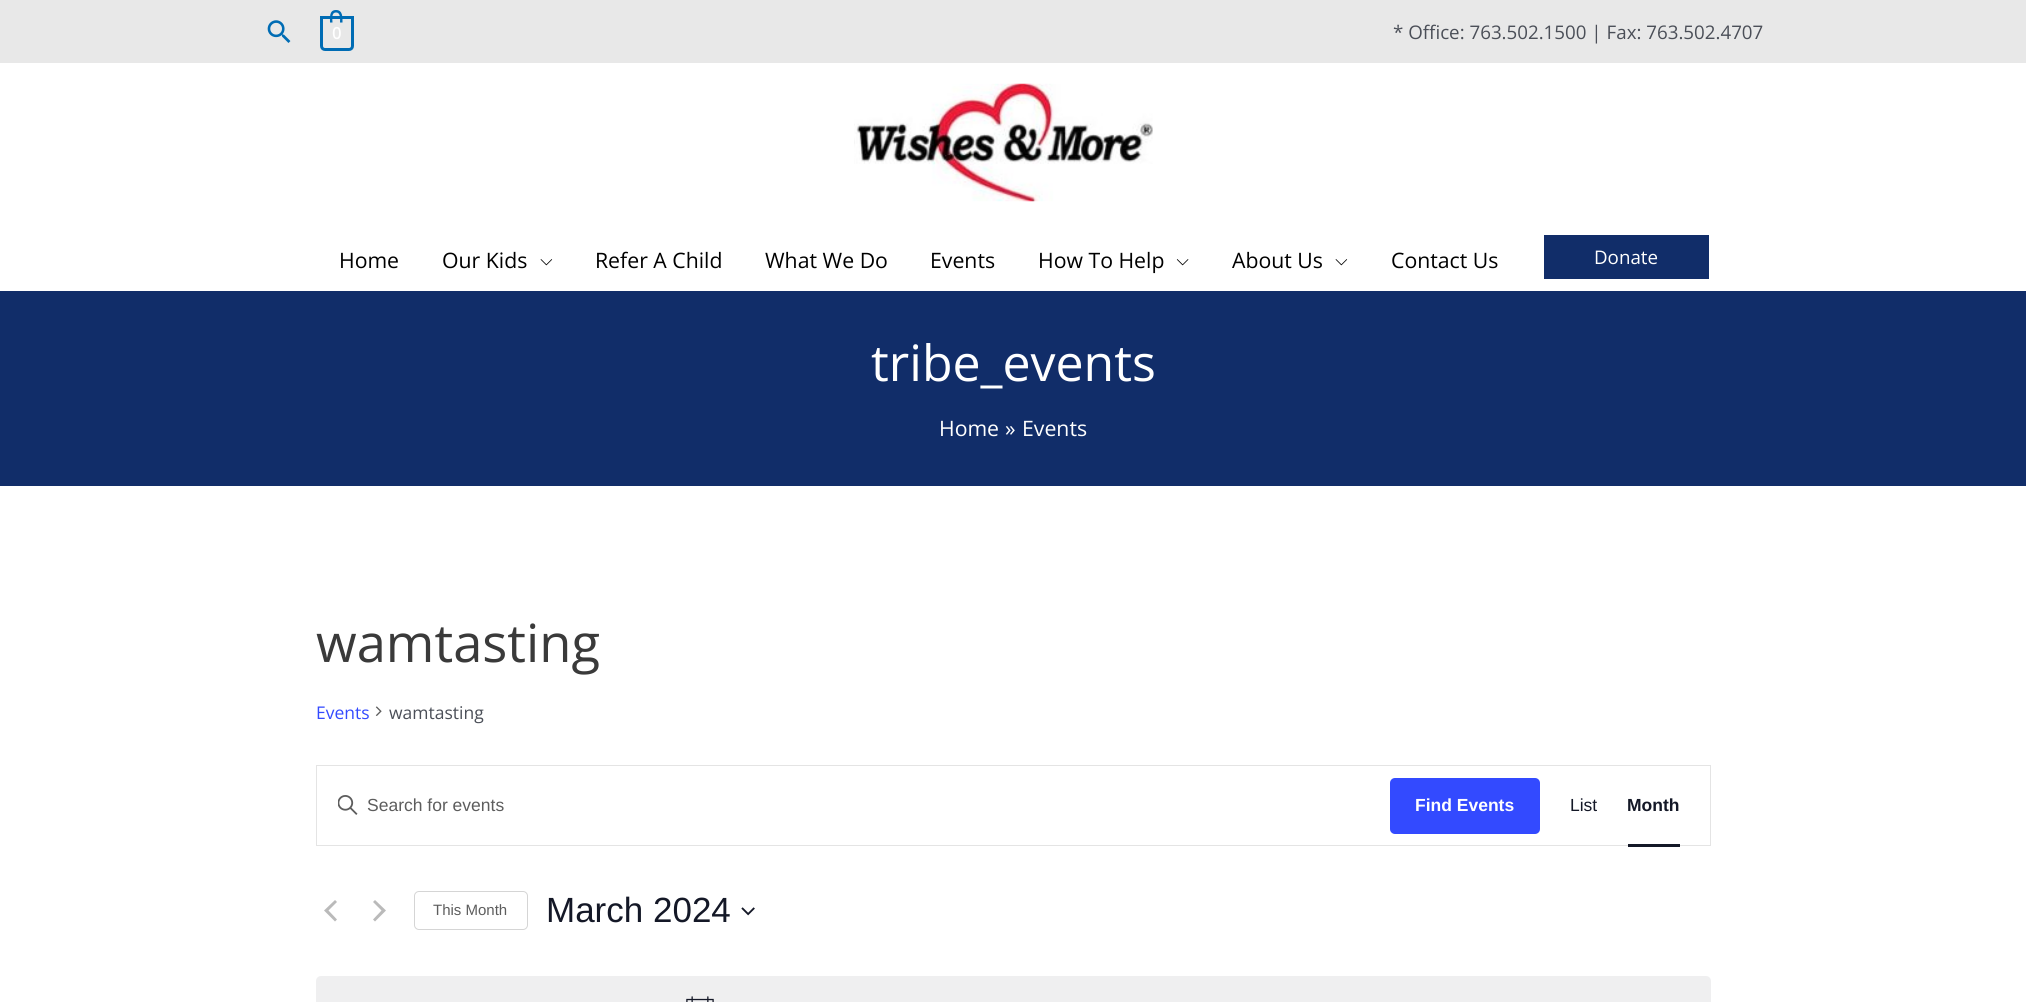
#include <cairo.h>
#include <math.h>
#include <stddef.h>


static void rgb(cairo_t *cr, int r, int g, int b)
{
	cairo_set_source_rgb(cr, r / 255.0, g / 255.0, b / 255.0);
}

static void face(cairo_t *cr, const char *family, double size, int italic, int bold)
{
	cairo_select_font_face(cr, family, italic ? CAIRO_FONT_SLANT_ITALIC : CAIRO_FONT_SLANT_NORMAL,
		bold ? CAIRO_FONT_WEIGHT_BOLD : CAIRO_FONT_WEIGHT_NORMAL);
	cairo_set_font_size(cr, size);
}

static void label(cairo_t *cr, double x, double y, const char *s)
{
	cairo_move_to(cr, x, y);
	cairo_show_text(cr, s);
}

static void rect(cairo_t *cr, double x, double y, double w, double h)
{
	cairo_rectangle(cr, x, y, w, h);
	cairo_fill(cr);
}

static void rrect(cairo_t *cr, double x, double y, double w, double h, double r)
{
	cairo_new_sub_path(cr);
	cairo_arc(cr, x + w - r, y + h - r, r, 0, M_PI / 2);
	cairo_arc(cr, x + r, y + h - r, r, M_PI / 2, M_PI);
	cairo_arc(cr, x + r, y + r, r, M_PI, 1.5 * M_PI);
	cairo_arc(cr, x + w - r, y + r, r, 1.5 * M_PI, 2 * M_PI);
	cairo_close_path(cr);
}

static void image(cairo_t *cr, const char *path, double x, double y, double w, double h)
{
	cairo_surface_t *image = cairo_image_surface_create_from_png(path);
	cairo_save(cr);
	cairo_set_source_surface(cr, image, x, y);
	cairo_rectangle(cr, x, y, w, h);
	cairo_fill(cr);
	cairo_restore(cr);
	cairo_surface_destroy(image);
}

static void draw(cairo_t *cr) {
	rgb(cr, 255, 255, 255);
	cairo_paint(cr);
	rgb(cr, 232, 232, 232);
	rect(cr, 0, 0, 2026, 63);
	image(cr, "image0.png", 267, 20, 24, 23);
	cairo_new_path(cr);
	cairo_move_to(cr, 321.5, 17.5);
	cairo_line_to(cr, 352.5, 17.5);
	cairo_line_to(cr, 352.5, 46);
	cairo_curve_to(cr, 352.5, 48, 351, 49.5, 349, 49.5);
	cairo_line_to(cr, 325, 49.5);
	cairo_curve_to(cr, 323, 49.5, 321.5, 48, 321.5, 46);
	cairo_close_path(cr);
	rgb(cr, 0, 108, 180);
	cairo_set_line_width(cr, 3);
	cairo_stroke(cr);
	cairo_set_fill_rule(cr, CAIRO_FILL_RULE_EVEN_ODD);
	cairo_new_path(cr);
	cairo_move_to(cr, 336, 10);
	cairo_curve_to(cr, 343, 10, 342.5, 17.5, 342.5, 22.5);
	cairo_line_to(cr, 330, 22.5);
	cairo_curve_to(cr, 330, 17.5, 329, 10, 336, 10);
	cairo_close_path(cr);
	cairo_move_to(cr, 336, 12.5);
	cairo_curve_to(cr, 341, 12.5, 340, 19.5, 340, 22.5);
	cairo_line_to(cr, 332.5, 22.5);
	cairo_curve_to(cr, 332.5, 19.5, 331, 12.5, 336, 12.5);
	cairo_close_path(cr);
	cairo_fill(cr);
	face(cr, "Open Sans", 16, 0, 1);
	rgb(cr, 255, 255, 255);
	label(cr, 332, 39, "0");
	face(cr, "Open Sans", 18.75, 0, 0);
	rgb(cr, 75, 79, 88);
	label(cr, 1393, 39, "* Office: 763.502.1500 | Fax: 763.502.4707");
	image(cr, "image1.png", 854, 83, 299, 119);
	face(cr, "Open Sans", 21.25, 0, 0);
	rgb(cr, 0, 0, 0);
	label(cr, 339, 268, "Home");
	label(cr, 442, 268, "Our Kids");
	image(cr, "image2.png", 540, 259, 13, 7);
	label(cr, 595, 268, "Refer A Child");
	label(cr, 765, 268, "What We Do");
	label(cr, 930, 268, "Events");
	label(cr, 1038, 268, "How To Help");
	image(cr, "image3.png", 1176, 259, 13, 7);
	label(cr, 1232, 268, "About Us");
	image(cr, "image2.png", 1335, 259, 13, 7);
	label(cr, 1391, 268, "Contact Us");
	rgb(cr, 17, 45, 105);
	rect(cr, 1544, 235, 165, 44);
	face(cr, "Open Sans", 18.75, 0, 0);
	rgb(cr, 255, 255, 255);
	label(cr, 1594, 264, "Donate");
	rgb(cr, 17, 45, 105);
	rect(cr, 0, 291, 2026, 195);
	face(cr, "Open Sans", 50, 0, 0);
	rgb(cr, 255, 255, 255);
	label(cr, 871, 381, "tribe_events");
	face(cr, "Open Sans", 21.25, 0, 0);
	label(cr, 939, 436, "Home");
	label(cr, 1005, 436, "»");
	label(cr, 1022, 436, "Events");
	face(cr, "Open Sans", 52.5, 0, 0);
	rgb(cr, 58, 58, 58);
	label(cr, 316, 662, "wamtasting");
	face(cr, "Open Sans", 17.5, 0, 0);
	rgb(cr, 51, 74, 255);
	label(cr, 316, 719, "Events");
	image(cr, "image4.png", 375, 706, 7, 10);
	rgb(cr, 75, 79, 88);
	label(cr, 389, 719, "wamtasting");
	cairo_rectangle(cr, 316.5, 765.5, 1394, 80);
	rgb(cr, 228, 228, 228);
	cairo_set_line_width(cr, 1);
	cairo_stroke(cr);
	image(cr, "image5.png", 338, 795, 20, 20);
	face(cr, "Liberation Sans", 17.5, 0, 0);
	rgb(cr, 93, 93, 93);
	label(cr, 367, 811, "Search for events");
	rgb(cr, 51, 74, 255);
	rrect(cr, 1390, 778, 150, 56, 5);
	cairo_fill(cr);
	face(cr, "Liberation Sans", 17.5, 0, 1);
	rgb(cr, 255, 255, 255);
	label(cr, 1415, 811, "Find Events");
	face(cr, "Liberation Sans", 17.5, 0, 0);
	rgb(cr, 20, 24, 39);
	label(cr, 1570, 811, "List");
	face(cr, "Liberation Sans", 17.5, 0, 1);
	label(cr, 1627, 811, "Month");
	rect(cr, 1628, 844, 52, 3);
	rgb(cr, 186, 186, 186);
	cairo_set_fill_rule(cr, CAIRO_FILL_RULE_WINDING);
	cairo_new_path(cr);
	cairo_move_to(cr, 337, 919.5);
	cairo_line_to(cr, 335, 921.5);
	cairo_line_to(cr, 324, 910.5);
	cairo_line_to(cr, 335, 900);
	cairo_line_to(cr, 337, 902);
	cairo_line_to(cr, 328.5, 910.5);
	cairo_close_path(cr);
	cairo_move_to(cr, 373, 902);
	cairo_line_to(cr, 375, 900);
	cairo_line_to(cr, 386, 910.5);
	cairo_line_to(cr, 375, 921.5);
	cairo_line_to(cr, 373, 919.5);
	cairo_line_to(cr, 381.5, 910.5);
	cairo_close_path(cr);
	cairo_fill(cr);
	rrect(cr, 414.5, 891.5, 113, 38, 4.5);
	rgb(cr, 213, 213, 213);
	cairo_stroke(cr);
	face(cr, "Liberation Sans", 15, 0, 0);
	rgb(cr, 93, 93, 93);
	label(cr, 433, 915, "This Month");
	face(cr, "Liberation Sans", 35, 0, 0);
	rgb(cr, 20, 24, 39);
	label(cr, 546, 922, "March 2024");
	image(cr, "image6.png", 741, 907, 14, 9);
	rgb(cr, 239, 239, 240);
	rrect(cr, 316, 976, 1395, 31, 5);
	cairo_fill(cr);
	image(cr, "image7.png", 686, 996, 28, 6);
}

int main(void) {
	cairo_surface_t *surface = cairo_image_surface_create(CAIRO_FORMAT_RGB24, 2026, 1002);
	cairo_t *cr = cairo_create(surface);
	cairo_font_options_t *options = cairo_font_options_create();
	cairo_font_options_set_hint_metrics(options, CAIRO_HINT_METRICS_OFF);
	cairo_font_options_set_hint_style(options, CAIRO_HINT_STYLE_NONE);
	cairo_set_font_options(cr, options);
	cairo_set_miter_limit(cr, 4);
	draw(cr);
	cairo_surface_write_to_png(surface, "render.png");
	cairo_font_options_destroy(options);
	cairo_destroy(cr);
	cairo_surface_destroy(surface);
	return 0;
}
